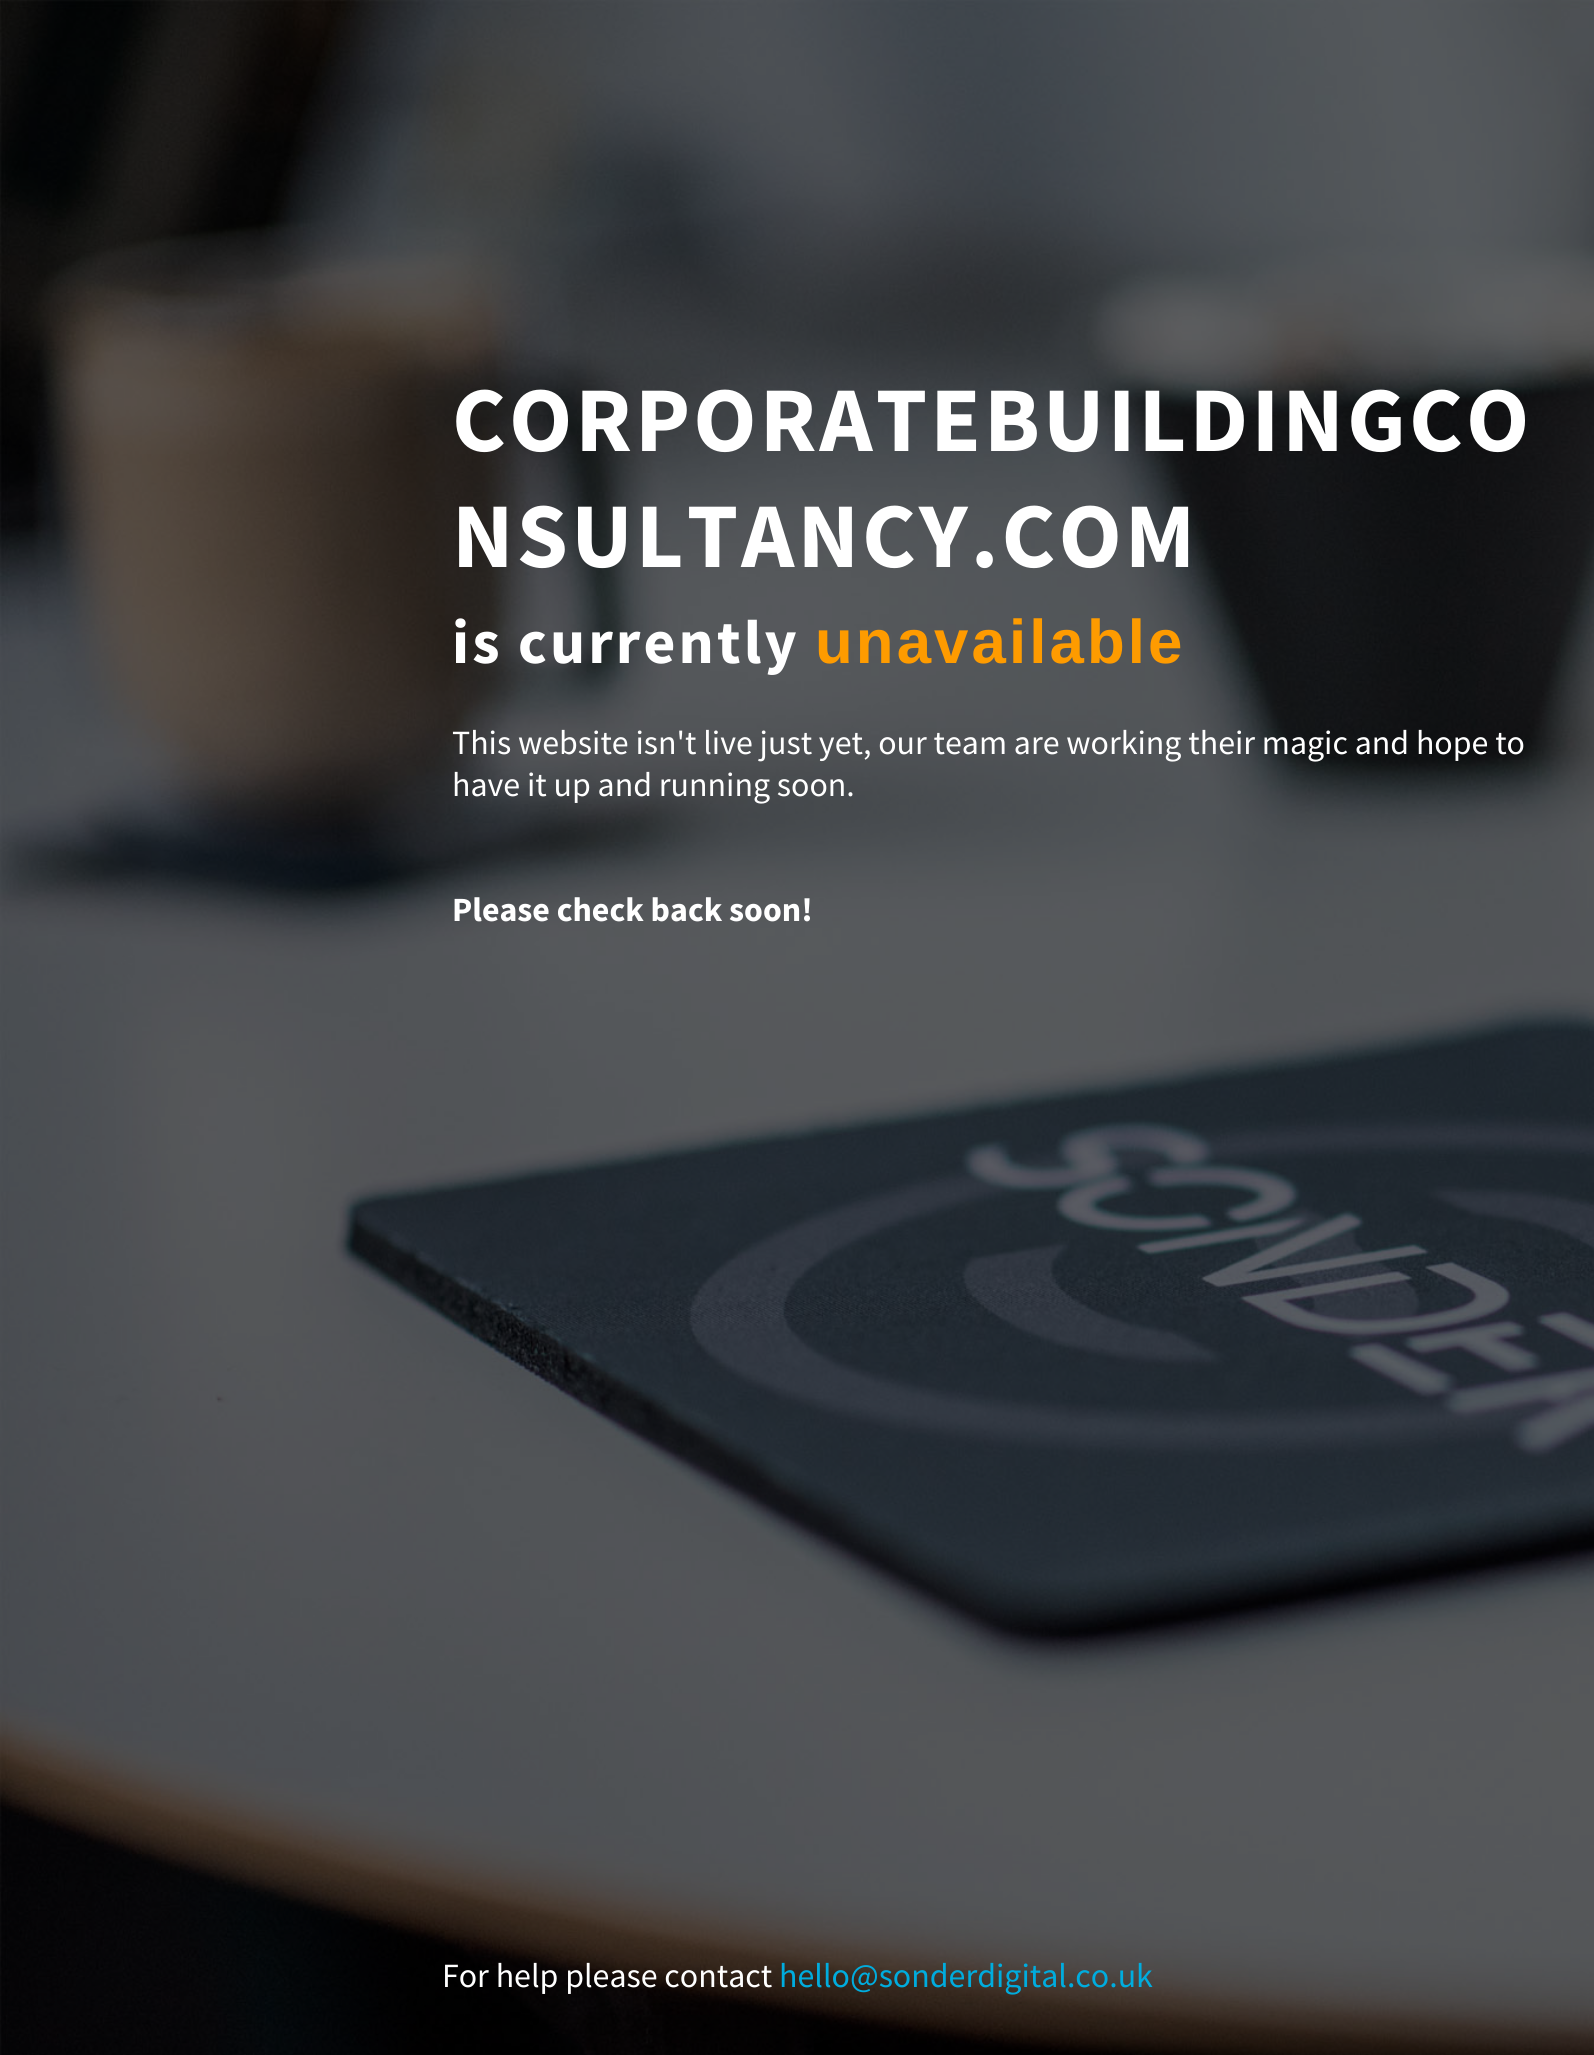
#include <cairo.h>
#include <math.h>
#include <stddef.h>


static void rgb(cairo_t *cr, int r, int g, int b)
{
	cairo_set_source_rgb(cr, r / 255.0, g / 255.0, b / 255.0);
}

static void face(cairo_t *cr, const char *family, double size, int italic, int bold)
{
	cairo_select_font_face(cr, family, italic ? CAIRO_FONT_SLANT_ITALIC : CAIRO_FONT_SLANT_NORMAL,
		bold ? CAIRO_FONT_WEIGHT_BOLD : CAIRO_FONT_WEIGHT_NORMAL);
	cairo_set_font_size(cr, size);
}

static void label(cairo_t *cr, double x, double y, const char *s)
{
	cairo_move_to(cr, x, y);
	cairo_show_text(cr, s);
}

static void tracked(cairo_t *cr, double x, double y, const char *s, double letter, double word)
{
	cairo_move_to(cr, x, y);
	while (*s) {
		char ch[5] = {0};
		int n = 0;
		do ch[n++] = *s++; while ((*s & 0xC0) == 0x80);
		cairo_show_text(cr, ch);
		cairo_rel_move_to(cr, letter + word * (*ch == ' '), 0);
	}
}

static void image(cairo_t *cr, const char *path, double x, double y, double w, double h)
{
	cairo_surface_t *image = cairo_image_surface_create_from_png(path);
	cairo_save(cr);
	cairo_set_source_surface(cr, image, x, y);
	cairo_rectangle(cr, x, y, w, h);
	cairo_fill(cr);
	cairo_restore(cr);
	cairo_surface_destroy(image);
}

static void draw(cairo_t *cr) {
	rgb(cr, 255, 255, 255);
	cairo_paint(cr);
	image(cr, "image0.png", 0, 0, 1594, 2055);
	face(cr, "Source Sans Pro", 92.5, 0, 1);
	rgb(cr, 255, 255, 255);
	tracked(cr, 452, 451, "CORPORATEBUILDINGCO", 3.1, 0);
	tracked(cr, 452, 567, "NSULTANCY.COM", 3.1, 0);
	face(cr, "Source Sans Pro", 61.75, 0, 1);
	tracked(cr, 452, 663, "is currently", 3.1, 0);
	face(cr, "Liberation Sans", 61.75, 0, 1);
	rgb(cr, 254, 155, 0);
	tracked(cr, 815, 663, "unavailable", 3.1, 0);
	face(cr, "Source Sans Pro", 33.9, 0, 0);
	rgb(cr, 255, 255, 255);
	label(cr, 452, 754, "This website isn't live just yet, our team are working their magic and hope to");
	label(cr, 452, 796, "have it up and running soon.");
	face(cr, "Source Sans Pro", 33.9, 0, 1);
	label(cr, 452, 921, "Please check back soon!");
	face(cr, "Source Sans Pro", 33.9, 0, 0);
	label(cr, 442, 1987, "For help please contact");
	rgb(cr, 0, 172, 222);
	label(cr, 779, 1987, "hello@sonderdigital.co.uk");
}

int main(void) {
	cairo_surface_t *surface = cairo_image_surface_create(CAIRO_FORMAT_RGB24, 1594, 2055);
	cairo_t *cr = cairo_create(surface);
	cairo_font_options_t *options = cairo_font_options_create();
	cairo_font_options_set_hint_metrics(options, CAIRO_HINT_METRICS_OFF);
	cairo_font_options_set_hint_style(options, CAIRO_HINT_STYLE_NONE);
	cairo_set_font_options(cr, options);
	cairo_set_miter_limit(cr, 4);
	draw(cr);
	cairo_surface_write_to_png(surface, "render.png");
	cairo_font_options_destroy(options);
	cairo_destroy(cr);
	cairo_surface_destroy(surface);
	return 0;
}
